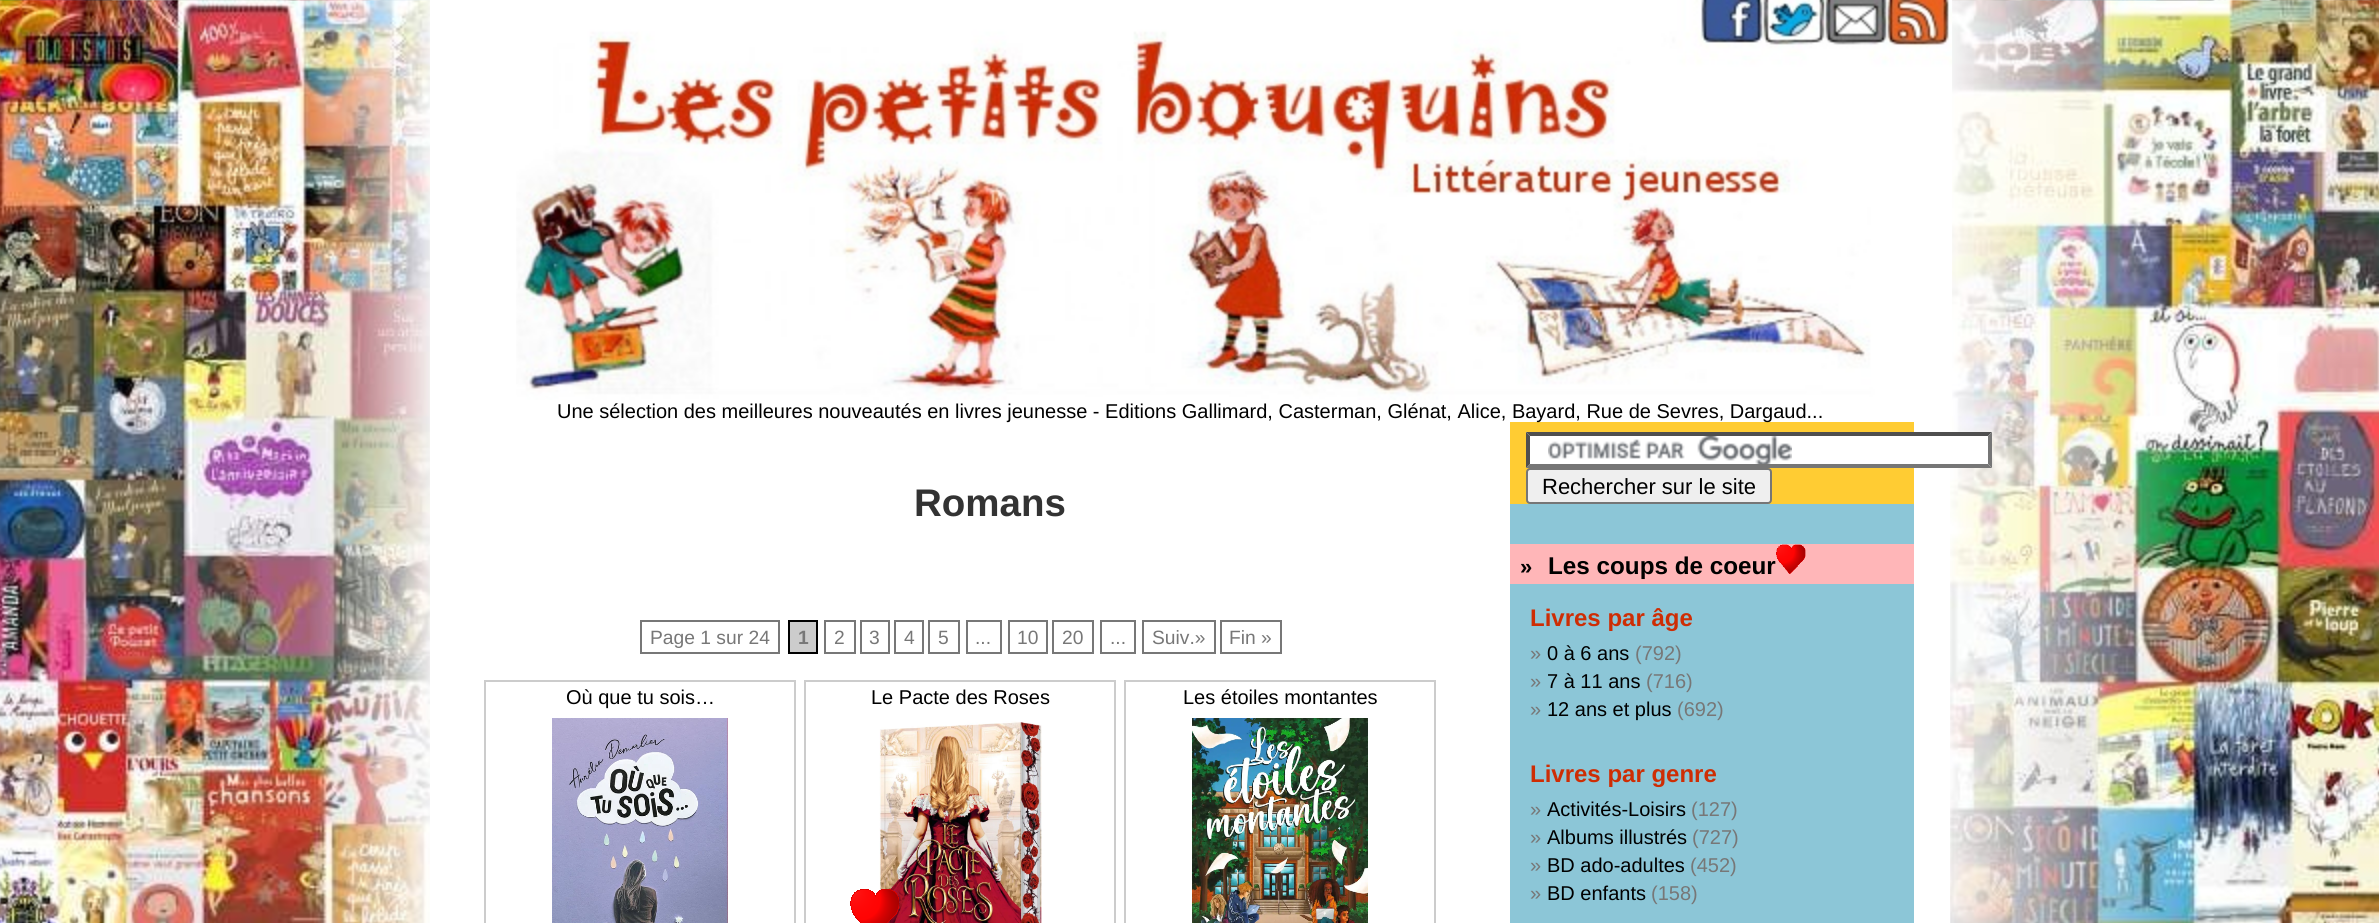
#include <cairo.h>
#include <math.h>
#include <stddef.h>


static void rgb(cairo_t *cr, int r, int g, int b)
{
	cairo_set_source_rgb(cr, r / 255.0, g / 255.0, b / 255.0);
}

static void face(cairo_t *cr, const char *family, double size, int italic, int bold)
{
	cairo_select_font_face(cr, family, italic ? CAIRO_FONT_SLANT_ITALIC : CAIRO_FONT_SLANT_NORMAL,
		bold ? CAIRO_FONT_WEIGHT_BOLD : CAIRO_FONT_WEIGHT_NORMAL);
	cairo_set_font_size(cr, size);
}

static void label(cairo_t *cr, double x, double y, const char *s)
{
	cairo_move_to(cr, x, y);
	cairo_show_text(cr, s);
}

static void rect(cairo_t *cr, double x, double y, double w, double h)
{
	cairo_rectangle(cr, x, y, w, h);
	cairo_fill(cr);
}

static void rrect(cairo_t *cr, double x, double y, double w, double h, double r)
{
	cairo_new_sub_path(cr);
	cairo_arc(cr, x + w - r, y + h - r, r, 0, M_PI / 2);
	cairo_arc(cr, x + r, y + h - r, r, M_PI / 2, M_PI);
	cairo_arc(cr, x + r, y + r, r, M_PI, 1.5 * M_PI);
	cairo_arc(cr, x + w - r, y + r, r, 1.5 * M_PI, 2 * M_PI);
	cairo_close_path(cr);
}

static void image(cairo_t *cr, const char *path, double x, double y, double w, double h)
{
	cairo_surface_t *image = cairo_image_surface_create_from_png(path);
	cairo_save(cr);
	cairo_set_source_surface(cr, image, x, y);
	cairo_rectangle(cr, x, y, w, h);
	cairo_fill(cr);
	cairo_restore(cr);
	cairo_surface_destroy(image);
}

static void draw(cairo_t *cr) {
	rgb(cr, 255, 255, 255);
	cairo_paint(cr);
	image(cr, "image0.png", 0, 0, 2379, 923);
	rgb(cr, 255, 255, 255);
	rect(cr, 430, 0, 1520, 923);
	image(cr, "image1.png", 516, 0, 1436, 400);
	rgb(cr, 255, 204, 51);
	rect(cr, 1510, 422, 404, 82);
	face(cr, "Liberation Sans", 20, 0, 0);
	rgb(cr, 0, 0, 0);
	label(cr, 557, 418, "Une sélection des meilleures nouveautés en livres jeunesse - Editions Gallimard, Casterman, Glénat, Alice, Bayard, Rue de Sevres, Dargaud...");
	face(cr, "Liberation Sans", 38.5, 0, 1);
	rgb(cr, 51, 51, 51);
	label(cr, 914, 516, "Romans");
	cairo_rectangle(cr, 641, 621, 138, 32);
	rgb(cr, 119, 119, 119);
	cairo_stroke(cr);
	face(cr, "Liberation Sans", 19.25, 0, 0);
	label(cr, 650, 644, "Page 1 sur 24");
	rgb(cr, 204, 204, 204);
	cairo_rectangle(cr, 789, 621, 28, 32);
	cairo_fill_preserve(cr);
	rgb(cr, 0, 0, 0);
	cairo_stroke(cr);
	face(cr, "Liberation Sans", 19.25, 0, 1);
	rgb(cr, 119, 119, 119);
	label(cr, 798, 644, "1");
	cairo_rectangle(cr, 825, 621, 30, 32);
	cairo_stroke(cr);
	face(cr, "Liberation Sans", 19.25, 0, 0);
	label(cr, 834, 644, "2");
	cairo_rectangle(cr, 861, 621, 28, 32);
	cairo_stroke(cr);
	label(cr, 869, 644, "3");
	cairo_rectangle(cr, 895, 621, 28, 32);
	cairo_stroke(cr);
	label(cr, 904, 644, "4");
	cairo_rectangle(cr, 929, 621, 30, 32);
	cairo_stroke(cr);
	label(cr, 938, 644, "5");
	cairo_rectangle(cr, 967, 621, 34, 32);
	cairo_stroke(cr);
	label(cr, 975, 644, "...");
	cairo_rectangle(cr, 1009, 621, 38, 32);
	cairo_stroke(cr);
	label(cr, 1017, 644, "10");
	cairo_rectangle(cr, 1053, 621, 40, 32);
	cairo_stroke(cr);
	label(cr, 1062, 644, "20");
	cairo_rectangle(cr, 1101, 621, 34, 32);
	cairo_stroke(cr);
	label(cr, 1110, 644, "...");
	cairo_rectangle(cr, 1143, 621, 72, 32);
	cairo_stroke(cr);
	label(cr, 1152, 644, "Suiv.»");
	cairo_rectangle(cr, 1221, 621, 60, 32);
	cairo_stroke(cr);
	label(cr, 1229, 644, "Fin »");
	cairo_rectangle(cr, 485, 681, 310, 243);
	rgb(cr, 204, 204, 204);
	cairo_stroke(cr);
	face(cr, "Liberation Sans", 20, 0, 0);
	rgb(cr, 0, 0, 0);
	label(cr, 566, 704, "Où que tu sois…");
	image(cr, "image2.png", 552, 718, 176, 205);
	cairo_rectangle(cr, 805, 681, 310, 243);
	rgb(cr, 204, 204, 204);
	cairo_stroke(cr);
	rgb(cr, 0, 0, 0);
	label(cr, 871, 704, "Le Pacte des Roses");
	image(cr, "image4.png", 879, 721, 163, 202);
	image(cr, "image3.png", 850, 889, 49, 34);
	cairo_rectangle(cr, 1125, 681, 310, 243);
	rgb(cr, 204, 204, 204);
	cairo_stroke(cr);
	rgb(cr, 0, 0, 0);
	label(cr, 1183, 704, "Les étoiles montantes");
	image(cr, "image5.png", 1192, 718, 176, 205);
	rgb(cr, 140, 198, 215);
	rect(cr, 1510, 504, 404, 419);
	rgb(cr, 255, 255, 255);
	rect(cr, 1526, 432, 466, 36);
	image(cr, "image6.png", 1548, 436, 244, 28);
	rgb(cr, 79, 79, 79);
	cairo_new_path(cr);
	cairo_move_to(cr, 1526, 432);
	cairo_line_to(cr, 1992, 432);
	cairo_line_to(cr, 1988, 436);
	cairo_line_to(cr, 1530, 436);
	cairo_close_path(cr);
	cairo_fill(cr);
	rgb(cr, 118, 118, 118);
	cairo_new_path(cr);
	cairo_move_to(cr, 1992, 432);
	cairo_line_to(cr, 1992, 468);
	cairo_line_to(cr, 1988, 464);
	cairo_line_to(cr, 1988, 436);
	cairo_close_path(cr);
	cairo_fill(cr);
	cairo_new_path(cr);
	cairo_move_to(cr, 1992, 468);
	cairo_line_to(cr, 1526, 468);
	cairo_line_to(cr, 1530, 464);
	cairo_line_to(cr, 1988, 464);
	cairo_close_path(cr);
	cairo_fill(cr);
	rgb(cr, 79, 79, 79);
	cairo_new_path(cr);
	cairo_move_to(cr, 1526, 468);
	cairo_line_to(cr, 1526, 432);
	cairo_line_to(cr, 1530, 436);
	cairo_line_to(cr, 1530, 464);
	cairo_close_path(cr);
	cairo_fill(cr);
	rgb(cr, 239, 239, 239);
	rrect(cr, 1527, 469, 244, 34, 3);
	cairo_fill_preserve(cr);
	rgb(cr, 118, 118, 118);
	cairo_stroke(cr);
	face(cr, "Liberation Sans", 22, 0, 0);
	rgb(cr, 0, 0, 0);
	label(cr, 1542, 494, "Rechercher sur le site");
	rgb(cr, 255, 182, 184);
	rect(cr, 1510, 544, 404, 40);
	face(cr, "Liberation Sans", 22, 0, 1);
	rgb(cr, 0, 0, 0);
	label(cr, 1520, 574, "»");
	face(cr, "Liberation Sans", 24.25, 0, 1);
	label(cr, 1548, 574, "Les coups de coeur");
	image(cr, "image7.png", 1776, 544, 30, 30);
	face(cr, "Liberation Sans", 24, 0, 1);
	rgb(cr, 206, 45, 4);
	label(cr, 1530, 626, "Livres par âge");
	face(cr, "Liberation Sans", 20, 0, 0);
	rgb(cr, 119, 119, 119);
	label(cr, 1530, 660, "»");
	rgb(cr, 0, 0, 0);
	label(cr, 1547, 660, "0 à 6 ans");
	rgb(cr, 119, 119, 119);
	label(cr, 1635, 660, "(792)");
	label(cr, 1530, 688, "»");
	rgb(cr, 0, 0, 0);
	label(cr, 1547, 688, "7 à 11 ans");
	rgb(cr, 119, 119, 119);
	label(cr, 1646, 688, "(716)");
	label(cr, 1530, 716, "»");
	rgb(cr, 0, 0, 0);
	label(cr, 1547, 716, "12 ans et plus");
	rgb(cr, 119, 119, 119);
	label(cr, 1677, 716, "(692)");
	face(cr, "Liberation Sans", 24, 0, 1);
	rgb(cr, 206, 45, 4);
	label(cr, 1530, 782, "Livres par genre");
	face(cr, "Liberation Sans", 20, 0, 0);
	rgb(cr, 119, 119, 119);
	label(cr, 1530, 816, "»");
	rgb(cr, 0, 0, 0);
	label(cr, 1547, 816, "Activités-Loisirs");
	rgb(cr, 119, 119, 119);
	label(cr, 1691, 816, "(127)");
	label(cr, 1530, 844, "»");
	rgb(cr, 0, 0, 0);
	label(cr, 1547, 844, "Albums illustrés");
	rgb(cr, 119, 119, 119);
	label(cr, 1692, 844, "(727)");
	label(cr, 1530, 872, "»");
	rgb(cr, 0, 0, 0);
	label(cr, 1547, 872, "BD ado-adultes");
	rgb(cr, 119, 119, 119);
	label(cr, 1690, 872, "(452)");
	label(cr, 1530, 900, "»");
	rgb(cr, 0, 0, 0);
	label(cr, 1547, 900, "BD enfants");
	rgb(cr, 119, 119, 119);
	label(cr, 1651, 900, "(158)");
}

int main(void) {
	cairo_surface_t *surface = cairo_image_surface_create(CAIRO_FORMAT_RGB24, 2379, 923);
	cairo_t *cr = cairo_create(surface);
	cairo_font_options_t *options = cairo_font_options_create();
	cairo_font_options_set_hint_metrics(options, CAIRO_HINT_METRICS_OFF);
	cairo_font_options_set_hint_style(options, CAIRO_HINT_STYLE_NONE);
	cairo_set_font_options(cr, options);
	cairo_set_miter_limit(cr, 4);
	draw(cr);
	cairo_surface_write_to_png(surface, "render.png");
	cairo_font_options_destroy(options);
	cairo_destroy(cr);
	cairo_surface_destroy(surface);
	return 0;
}
